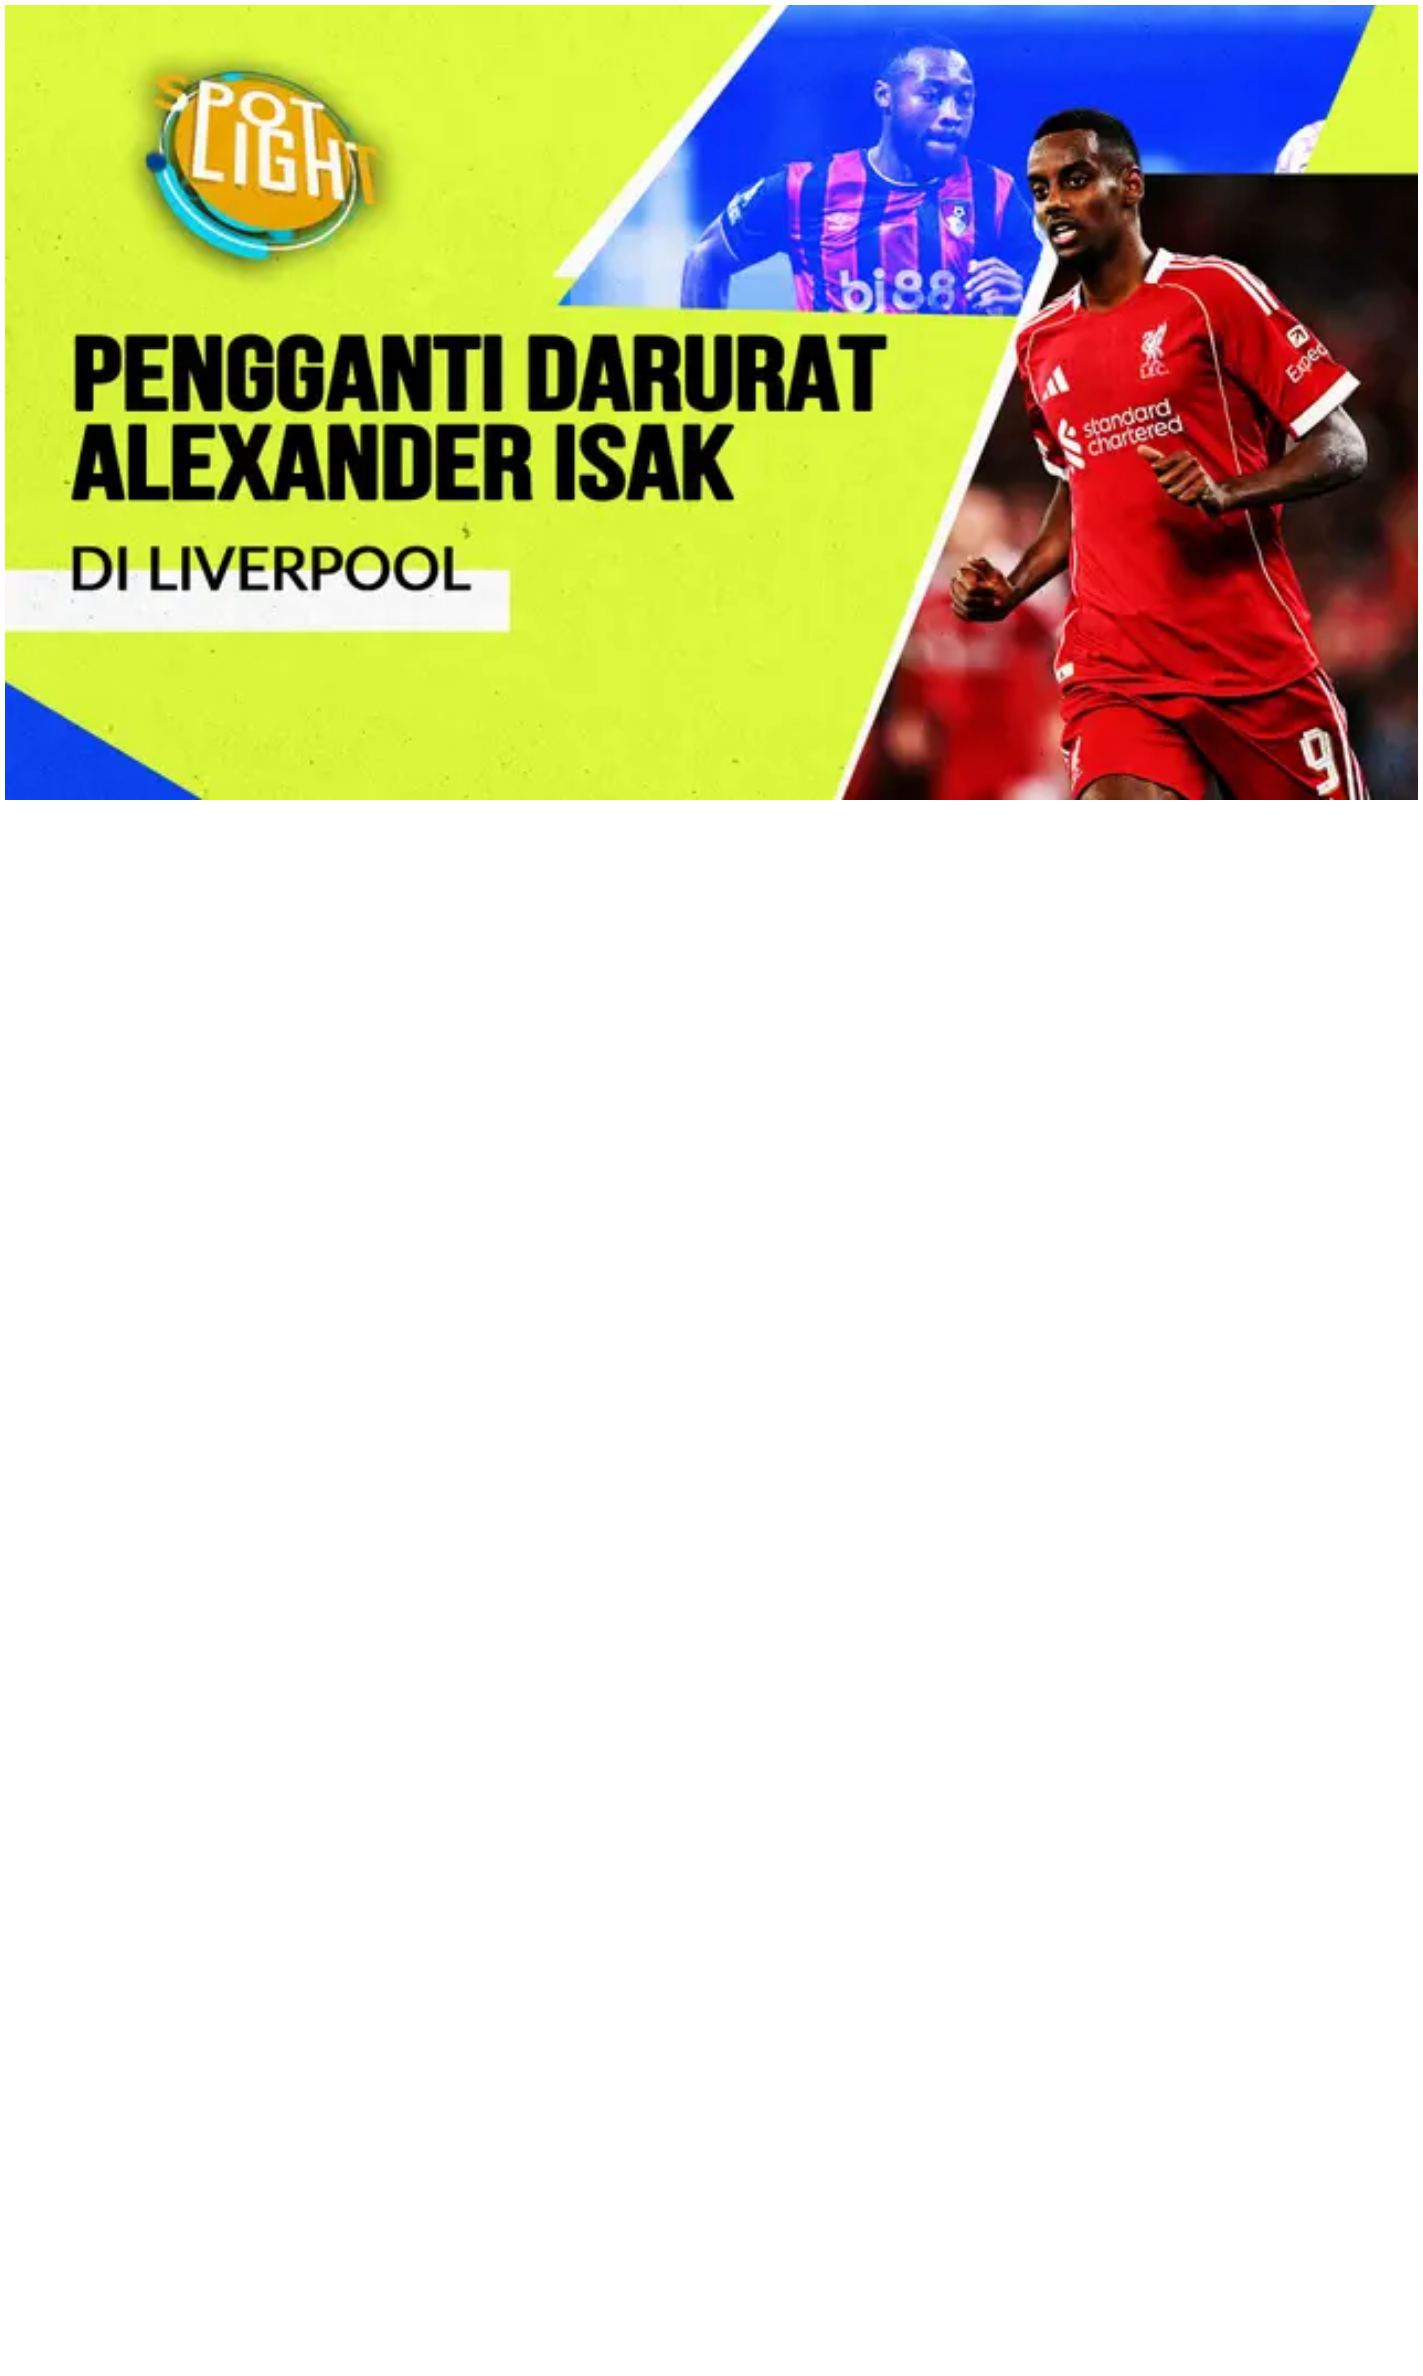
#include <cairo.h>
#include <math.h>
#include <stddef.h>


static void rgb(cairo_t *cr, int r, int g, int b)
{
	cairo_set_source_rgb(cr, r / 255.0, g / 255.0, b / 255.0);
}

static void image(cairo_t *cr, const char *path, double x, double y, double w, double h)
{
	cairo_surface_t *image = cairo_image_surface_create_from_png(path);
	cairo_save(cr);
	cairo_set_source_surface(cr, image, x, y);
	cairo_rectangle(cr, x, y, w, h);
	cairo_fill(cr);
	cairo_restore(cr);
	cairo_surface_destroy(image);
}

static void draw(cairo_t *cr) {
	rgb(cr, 255, 255, 255);
	cairo_paint(cr);
	image(cr, "image0.png", 5, 5, 1413, 795);
}

int main(void) {
	cairo_surface_t *surface = cairo_image_surface_create(CAIRO_FORMAT_RGB24, 1423, 2376);
	cairo_t *cr = cairo_create(surface);
	cairo_font_options_t *options = cairo_font_options_create();
	cairo_font_options_set_hint_metrics(options, CAIRO_HINT_METRICS_OFF);
	cairo_font_options_set_hint_style(options, CAIRO_HINT_STYLE_NONE);
	cairo_set_font_options(cr, options);
	cairo_set_miter_limit(cr, 4);
	draw(cr);
	cairo_surface_write_to_png(surface, "render.png");
	cairo_font_options_destroy(options);
	cairo_destroy(cr);
	cairo_surface_destroy(surface);
	return 0;
}
